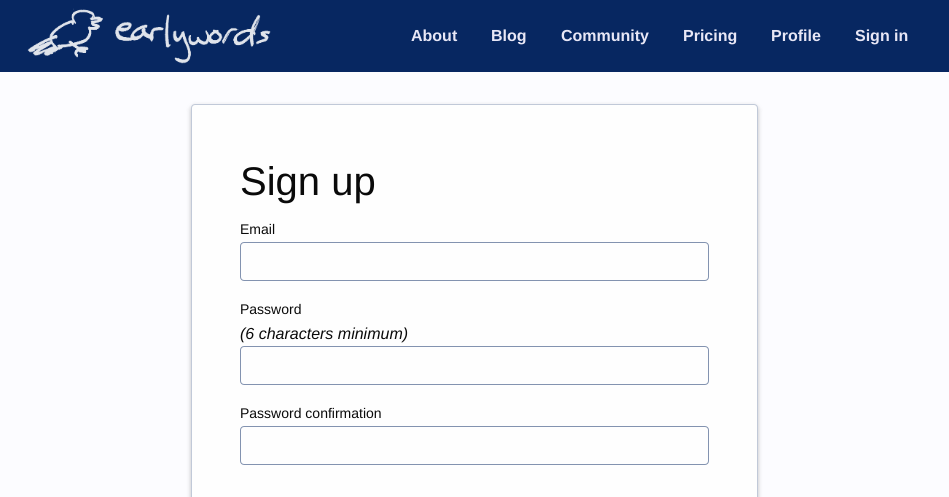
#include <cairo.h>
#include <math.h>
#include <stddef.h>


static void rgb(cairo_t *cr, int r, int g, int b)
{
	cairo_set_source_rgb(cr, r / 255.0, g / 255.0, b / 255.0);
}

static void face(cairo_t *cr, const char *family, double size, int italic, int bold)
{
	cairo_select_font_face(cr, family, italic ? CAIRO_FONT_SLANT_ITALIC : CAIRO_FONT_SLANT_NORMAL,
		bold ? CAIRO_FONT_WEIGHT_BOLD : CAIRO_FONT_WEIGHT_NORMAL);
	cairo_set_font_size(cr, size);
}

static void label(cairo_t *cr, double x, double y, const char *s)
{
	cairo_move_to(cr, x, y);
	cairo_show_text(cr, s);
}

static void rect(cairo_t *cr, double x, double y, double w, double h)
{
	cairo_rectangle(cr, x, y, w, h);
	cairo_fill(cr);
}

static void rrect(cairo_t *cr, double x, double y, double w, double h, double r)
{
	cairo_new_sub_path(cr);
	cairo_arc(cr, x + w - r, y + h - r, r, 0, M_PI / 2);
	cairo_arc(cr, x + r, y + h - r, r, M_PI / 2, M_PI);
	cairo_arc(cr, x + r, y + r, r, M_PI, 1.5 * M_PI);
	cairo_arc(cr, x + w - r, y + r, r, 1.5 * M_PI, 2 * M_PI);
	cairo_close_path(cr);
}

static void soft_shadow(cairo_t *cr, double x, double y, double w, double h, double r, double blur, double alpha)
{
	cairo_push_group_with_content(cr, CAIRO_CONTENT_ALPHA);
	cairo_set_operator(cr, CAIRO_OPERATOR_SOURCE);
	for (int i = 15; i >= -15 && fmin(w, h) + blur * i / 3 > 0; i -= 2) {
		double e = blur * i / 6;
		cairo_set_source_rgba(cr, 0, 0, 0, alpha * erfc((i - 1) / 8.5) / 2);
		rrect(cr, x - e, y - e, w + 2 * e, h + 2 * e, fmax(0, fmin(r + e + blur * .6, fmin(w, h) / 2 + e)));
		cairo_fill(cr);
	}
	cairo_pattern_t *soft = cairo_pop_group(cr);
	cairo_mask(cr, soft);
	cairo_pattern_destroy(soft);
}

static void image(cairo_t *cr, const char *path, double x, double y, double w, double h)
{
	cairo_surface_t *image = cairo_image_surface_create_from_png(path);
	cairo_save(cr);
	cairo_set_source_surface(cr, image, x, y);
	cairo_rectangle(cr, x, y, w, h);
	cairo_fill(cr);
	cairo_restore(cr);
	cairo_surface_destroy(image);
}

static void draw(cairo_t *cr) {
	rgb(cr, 252, 252, 255);
	cairo_paint(cr);
	rgb(cr, 7, 39, 97);
	rect(cr, 0, 0, 949, 72);
	image(cr, "image0.png", 27, 8, 244, 56);
	face(cr, "Liberation Sans", 16, 0, 1);
	rgb(cr, 232, 231, 246);
	label(cr, 411, 41, "About");
	label(cr, 491, 41, "Blog");
	label(cr, 561, 41, "Community");
	label(cr, 683, 41, "Pricing");
	label(cr, 771, 41, "Profile");
	label(cr, 855, 41, "Sign in");
	rgb(cr, 0, 0, 0);
	soft_shadow(cr, 191, 106, 567, 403, 4, 2.5, 0.24);
	rgb(cr, 254, 254, 254);
	rrect(cr, 191.5, 104.5, 566, 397, 3.5);
	cairo_fill_preserve(cr);
	rgb(cr, 193, 201, 216);
	cairo_set_line_width(cr, 1);
	cairo_stroke(cr);
	face(cr, "Liberation Sans", 40, 0, 0);
	rgb(cr, 10, 10, 10);
	label(cr, 240, 195, "Sign up");
	face(cr, "Liberation Sans", 14, 0, 0);
	label(cr, 240, 234, "Email");
	rrect(cr, 240.5, 242.5, 468, 38, 3.5);
	rgb(cr, 131, 147, 176);
	cairo_stroke(cr);
	rgb(cr, 10, 10, 10);
	label(cr, 240, 314, "Password");
	face(cr, "Liberation Sans", 16, 1, 0);
	label(cr, 240, 339, "(6 characters minimum)");
	rrect(cr, 240.5, 346.5, 468, 38, 3.5);
	rgb(cr, 131, 147, 176);
	cairo_stroke(cr);
	face(cr, "Liberation Sans", 14, 0, 0);
	rgb(cr, 10, 10, 10);
	label(cr, 240, 418, "Password confirmation");
	rrect(cr, 240.5, 426.5, 468, 38, 3.5);
	rgb(cr, 131, 147, 176);
	cairo_stroke(cr);
}

int main(void) {
	cairo_surface_t *surface = cairo_image_surface_create(CAIRO_FORMAT_RGB24, 949, 497);
	cairo_t *cr = cairo_create(surface);
	cairo_font_options_t *options = cairo_font_options_create();
	cairo_font_options_set_hint_metrics(options, CAIRO_HINT_METRICS_OFF);
	cairo_font_options_set_hint_style(options, CAIRO_HINT_STYLE_NONE);
	cairo_set_font_options(cr, options);
	cairo_set_miter_limit(cr, 4);
	draw(cr);
	cairo_surface_write_to_png(surface, "render.png");
	cairo_font_options_destroy(options);
	cairo_destroy(cr);
	cairo_surface_destroy(surface);
	return 0;
}
